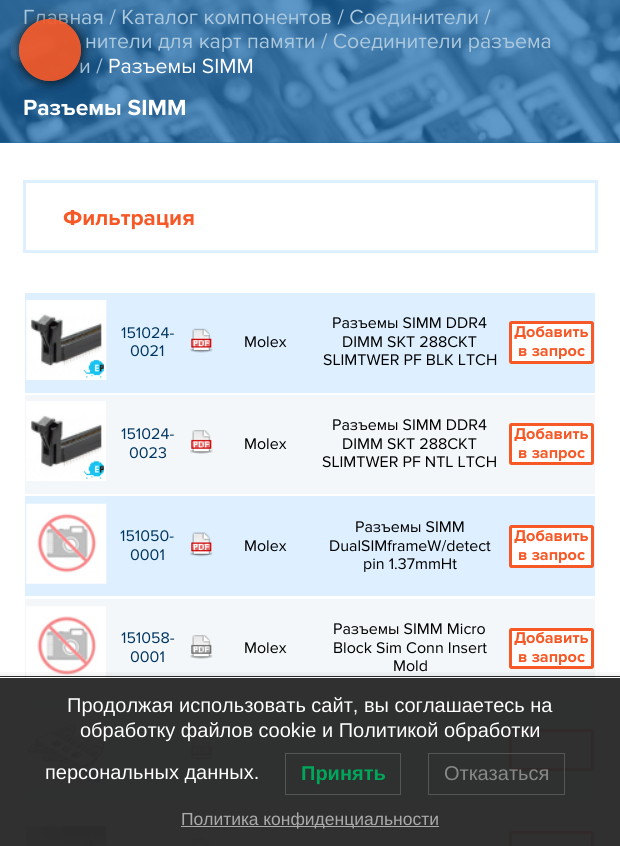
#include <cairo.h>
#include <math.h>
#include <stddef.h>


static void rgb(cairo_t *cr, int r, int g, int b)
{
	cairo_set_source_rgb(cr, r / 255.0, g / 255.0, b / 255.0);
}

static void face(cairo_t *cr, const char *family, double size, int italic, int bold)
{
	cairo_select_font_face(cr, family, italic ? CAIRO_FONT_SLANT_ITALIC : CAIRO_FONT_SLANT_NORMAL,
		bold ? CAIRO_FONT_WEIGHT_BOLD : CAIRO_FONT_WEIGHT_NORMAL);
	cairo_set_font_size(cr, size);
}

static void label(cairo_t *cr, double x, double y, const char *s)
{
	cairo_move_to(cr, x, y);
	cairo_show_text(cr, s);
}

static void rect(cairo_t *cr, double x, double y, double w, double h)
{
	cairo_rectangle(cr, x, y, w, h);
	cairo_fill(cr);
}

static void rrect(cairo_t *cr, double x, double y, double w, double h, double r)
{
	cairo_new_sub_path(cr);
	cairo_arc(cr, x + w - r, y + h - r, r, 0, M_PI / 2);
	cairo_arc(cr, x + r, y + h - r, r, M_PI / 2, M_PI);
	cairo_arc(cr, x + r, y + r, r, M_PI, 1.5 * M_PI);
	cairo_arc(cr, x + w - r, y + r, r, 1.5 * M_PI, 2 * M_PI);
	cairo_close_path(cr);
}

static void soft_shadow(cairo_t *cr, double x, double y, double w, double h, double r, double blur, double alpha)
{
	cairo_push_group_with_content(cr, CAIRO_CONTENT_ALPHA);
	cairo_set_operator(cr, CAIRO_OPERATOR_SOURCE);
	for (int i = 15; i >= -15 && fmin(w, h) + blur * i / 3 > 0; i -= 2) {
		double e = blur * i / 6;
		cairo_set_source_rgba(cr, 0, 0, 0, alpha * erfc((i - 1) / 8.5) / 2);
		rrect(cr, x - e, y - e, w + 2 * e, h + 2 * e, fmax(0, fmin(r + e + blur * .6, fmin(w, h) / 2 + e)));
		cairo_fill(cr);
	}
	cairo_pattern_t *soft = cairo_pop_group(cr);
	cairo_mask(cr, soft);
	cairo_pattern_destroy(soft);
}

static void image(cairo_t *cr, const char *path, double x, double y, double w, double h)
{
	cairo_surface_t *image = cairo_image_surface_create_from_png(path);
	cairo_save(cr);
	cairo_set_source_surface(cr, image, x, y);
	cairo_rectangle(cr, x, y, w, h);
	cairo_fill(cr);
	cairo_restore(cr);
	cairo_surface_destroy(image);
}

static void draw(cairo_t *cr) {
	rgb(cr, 255, 255, 255);
	cairo_paint(cr);
	rgb(cr, 26, 110, 179);
	rect(cr, 0, 0, 620, 143);
	image(cr, "image0.png", 0, 0, 620, 143);
	cairo_save(cr);
	cairo_set_fill_rule(cr, CAIRO_FILL_RULE_EVEN_ODD);
	cairo_new_path(cr);
	cairo_move_to(cr, 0, 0);
	cairo_line_to(cr, 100, 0);
	cairo_line_to(cr, 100, 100);
	cairo_line_to(cr, 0, 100);
	cairo_close_path(cr);
	cairo_move_to(cr, 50, 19);
	cairo_curve_to(cr, 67, 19, 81, 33, 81, 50);
	cairo_curve_to(cr, 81, 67, 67, 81, 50, 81);
	cairo_curve_to(cr, 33, 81, 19, 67, 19, 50);
	cairo_curve_to(cr, 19, 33, 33, 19, 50, 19);
	cairo_close_path(cr);
	cairo_clip(cr);
	rgb(cr, 0, 0, 0);
	soft_shadow(cr, 19, 19, 62, 62, 31, 6, 0.52);
	cairo_restore(cr);
	face(cr, "Proxima Nova", 21.25, 0, 0);
	rgb(cr, 172, 200, 220);
	label(cr, 23, 24, "Главная / Каталог компонентов / Соединители /");
	label(cr, 79, 73, "и /");
	cairo_set_source_rgba(cr, 0.965, 0.345, 0.149, 0.7);
	cairo_new_path(cr);
	cairo_arc(cr, 50, 50, 31, 0, 2 * M_PI);
	cairo_fill(cr);
	cairo_save(cr);
	cairo_set_fill_rule(cr, CAIRO_FILL_RULE_EVEN_ODD);
	cairo_new_path(cr);
	cairo_move_to(cr, 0, 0);
	cairo_line_to(cr, 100, 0);
	cairo_line_to(cr, 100, 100);
	cairo_line_to(cr, 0, 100);
	cairo_close_path(cr);
	cairo_move_to(cr, 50, 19);
	cairo_curve_to(cr, 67, 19, 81, 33, 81, 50);
	cairo_curve_to(cr, 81, 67, 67, 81, 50, 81);
	cairo_curve_to(cr, 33, 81, 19, 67, 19, 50);
	cairo_curve_to(cr, 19, 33, 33, 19, 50, 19);
	cairo_close_path(cr);
	cairo_clip(cr);
	rgb(cr, 0, 0, 0);
	soft_shadow(cr, 19, 19, 62, 62, 31, 6, 0.52);
	cairo_restore(cr);
	cairo_arc(cr, 50, 50, 31, 0, 2 * M_PI);
	cairo_fill(cr);
	rgb(cr, 172, 200, 220);
	label(cr, 85, 48, "нители для карт памяти / Соединители разъема");
	rgb(cr, 255, 255, 255);
	label(cr, 108, 73, "Разъемы SIMM");
	face(cr, "Proxima Nova", 22.75, 0, 1);
	label(cr, 23, 115, "Разъемы SIMM");
	cairo_rectangle(cr, 24.5, 181.5, 572, 70);
	rgb(cr, 222, 240, 255);
	cairo_set_line_width(cr, 3);
	cairo_stroke(cr);
	face(cr, "Proxima Nova", 22.5, 0, 1);
	rgb(cr, 246, 88, 38);
	label(cr, 63, 225, "Фильтрация");
	rgb(cr, 222, 240, 255);
	rect(cr, 25, 293, 570, 100);
	image(cr, "image1.png", 26, 300, 81, 80);
	face(cr, "Proxima Nova", 16, 0, 0);
	rgb(cr, 0, 53, 97);
	label(cr, 121, 338, "151024-");
	label(cr, 130, 356, "0021");
	image(cr, "image2.png", 190, 328, 23, 25);
	rgb(cr, 0, 0, 0);
	label(cr, 244, 347, "Molex");
	label(cr, 332, 328, "Разъемы SIMM DDR4");
	label(cr, 342, 347, "DIMM SKT 288CKT");
	label(cr, 323, 365, "SLIMTWER PF BLK LTCH");
	rgb(cr, 255, 255, 255);
	rrect(cr, 510.5, 322.5, 82, 40, 1);
	cairo_fill_preserve(cr);
	rgb(cr, 246, 88, 38);
	cairo_stroke(cr);
	face(cr, "Proxima Nova", 16.25, 0, 1);
	label(cr, 514, 337, "Добавить");
	label(cr, 518, 356, "в запрос");
	rgb(cr, 243, 247, 249);
	rect(cr, 25, 395, 570, 99);
	image(cr, "image3.png", 26, 401, 80, 80);
	face(cr, "Proxima Nova", 16, 0, 0);
	rgb(cr, 0, 53, 97);
	label(cr, 121, 439, "151024-");
	label(cr, 129, 458, "0023");
	image(cr, "image4.png", 190, 430, 23, 24);
	rgb(cr, 0, 0, 0);
	label(cr, 244, 449, "Molex");
	label(cr, 332, 430, "Разъемы SIMM DDR4");
	label(cr, 342, 449, "DIMM SKT 288CKT");
	label(cr, 322, 467, "SLIMTWER PF NTL LTCH");
	rgb(cr, 255, 255, 255);
	rrect(cr, 510.5, 424.5, 82, 39, 1);
	cairo_fill_preserve(cr);
	rgb(cr, 246, 88, 38);
	cairo_stroke(cr);
	face(cr, "Proxima Nova", 16.25, 0, 1);
	label(cr, 514, 439, "Добавить");
	label(cr, 518, 458, "в запрос");
	rgb(cr, 222, 240, 255);
	rect(cr, 25, 496, 570, 100);
	image(cr, "image5.png", 26, 503, 81, 81);
	face(cr, "Proxima Nova", 16, 0, 0);
	rgb(cr, 0, 53, 97);
	label(cr, 120, 541, "151050-");
	label(cr, 130, 560, "0001");
	image(cr, "image6.png", 190, 532, 23, 25);
	rgb(cr, 0, 0, 0);
	label(cr, 244, 551, "Molex");
	label(cr, 355, 532, "Разъемы SIMM");
	label(cr, 329, 551, "DualSIMframeW/detect");
	label(cr, 363, 569, "pin 1.37mmHt");
	rgb(cr, 255, 255, 255);
	rrect(cr, 510.5, 526.5, 82, 40, 1);
	cairo_fill_preserve(cr);
	rgb(cr, 246, 88, 38);
	cairo_stroke(cr);
	face(cr, "Proxima Nova", 16.25, 0, 1);
	label(cr, 514, 541, "Добавить");
	label(cr, 518, 560, "в запрос");
	rgb(cr, 243, 247, 249);
	rect(cr, 25, 599, 570, 99);
	image(cr, "image7.png", 26, 606, 80, 80);
	face(cr, "Proxima Nova", 16, 0, 0);
	rgb(cr, 0, 53, 97);
	label(cr, 121, 643, "151058-");
	label(cr, 130, 662, "0001");
	image(cr, "image8.png", 190, 635, 23, 24);
	rgb(cr, 0, 0, 0);
	label(cr, 244, 653, "Molex");
	label(cr, 333, 634, "Разъемы SIMM Micro");
	label(cr, 333, 653, "Block Sim Conn Insert");
	label(cr, 393, 671, "Mold");
	rgb(cr, 255, 255, 255);
	rrect(cr, 510.5, 629.5, 82, 38, 1);
	cairo_fill_preserve(cr);
	rgb(cr, 246, 88, 38);
	cairo_stroke(cr);
	face(cr, "Proxima Nova", 16.25, 0, 1);
	label(cr, 514, 643, "Добавить");
	label(cr, 518, 662, "в запрос");
	rgb(cr, 222, 240, 255);
	rect(cr, 25, 700, 570, 100);
	image(cr, "image9.png", 26, 707, 81, 81);
	image(cr, "image10.png", 190, 736, 23, 24);
	rgb(cr, 255, 255, 255);
	rrect(cr, 510.5, 730.5, 82, 39, 1);
	cairo_fill_preserve(cr);
	rgb(cr, 246, 88, 38);
	cairo_stroke(cr);
	rgb(cr, 243, 247, 249);
	rect(cr, 25, 803, 570, 43);
	image(cr, "image11.png", 26, 810, 81, 36);
	image(cr, "image12.png", 192, 838, 19, 8);
	rgb(cr, 255, 255, 255);
	rrect(cr, 510.5, 832.5, 82, 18, 1);
	cairo_fill_preserve(cr);
	rgb(cr, 246, 88, 38);
	cairo_stroke(cr);
	cairo_save(cr);
	cairo_rectangle(cr, 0, 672, 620, 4);
	cairo_clip(cr);
	rgb(cr, 0, 0, 0);
	soft_shadow(cr, 0, 676, 620, 170, 0, 5, 0.1);
	cairo_restore(cr);
	cairo_set_source_rgba(cr, 0.169, 0.169, 0.169, 0.97);
	rect(cr, 0, 678, 620, 168);
	rgb(cr, 43, 43, 43);
	rect(cr, 0, 676, 620, 1);
	face(cr, "Liberation Sans", 20, 0, 0);
	rgb(cr, 255, 255, 255);
	label(cr, 67, 712, "Продолжая использовать сайт, вы соглашаетесь на");
	label(cr, 80, 737, "обработку файлов cookie и Политикой обработки");
	label(cr, 45, 779, "персональных данных.");
	cairo_rectangle(cr, 285.5, 753.5, 115, 41);
	rgb(cr, 85, 85, 85);
	cairo_set_line_width(cr, 1);
	cairo_stroke(cr);
	face(cr, "Liberation Sans", 20, 0, 1);
	rgb(cr, 0, 166, 90);
	label(cr, 301, 780, "Принять");
	cairo_rectangle(cr, 428.5, 753.5, 136, 41);
	rgb(cr, 85, 85, 85);
	cairo_stroke(cr);
	face(cr, "Liberation Sans", 20, 0, 0);
	rgb(cr, 136, 136, 136);
	label(cr, 444, 780, "Отказаться");
	rgb(cr, 170, 170, 170);
	rect(cr, 181, 826, 258, 1);
	face(cr, "Liberation Sans", 17.5, 0, 0);
	label(cr, 181, 825, "Политика конфиденциальности");
}

int main(void) {
	cairo_surface_t *surface = cairo_image_surface_create(CAIRO_FORMAT_RGB24, 620, 846);
	cairo_t *cr = cairo_create(surface);
	cairo_font_options_t *options = cairo_font_options_create();
	cairo_font_options_set_hint_metrics(options, CAIRO_HINT_METRICS_OFF);
	cairo_font_options_set_hint_style(options, CAIRO_HINT_STYLE_NONE);
	cairo_set_font_options(cr, options);
	cairo_set_miter_limit(cr, 4);
	draw(cr);
	cairo_surface_write_to_png(surface, "render.png");
	cairo_font_options_destroy(options);
	cairo_destroy(cr);
	cairo_surface_destroy(surface);
	return 0;
}
